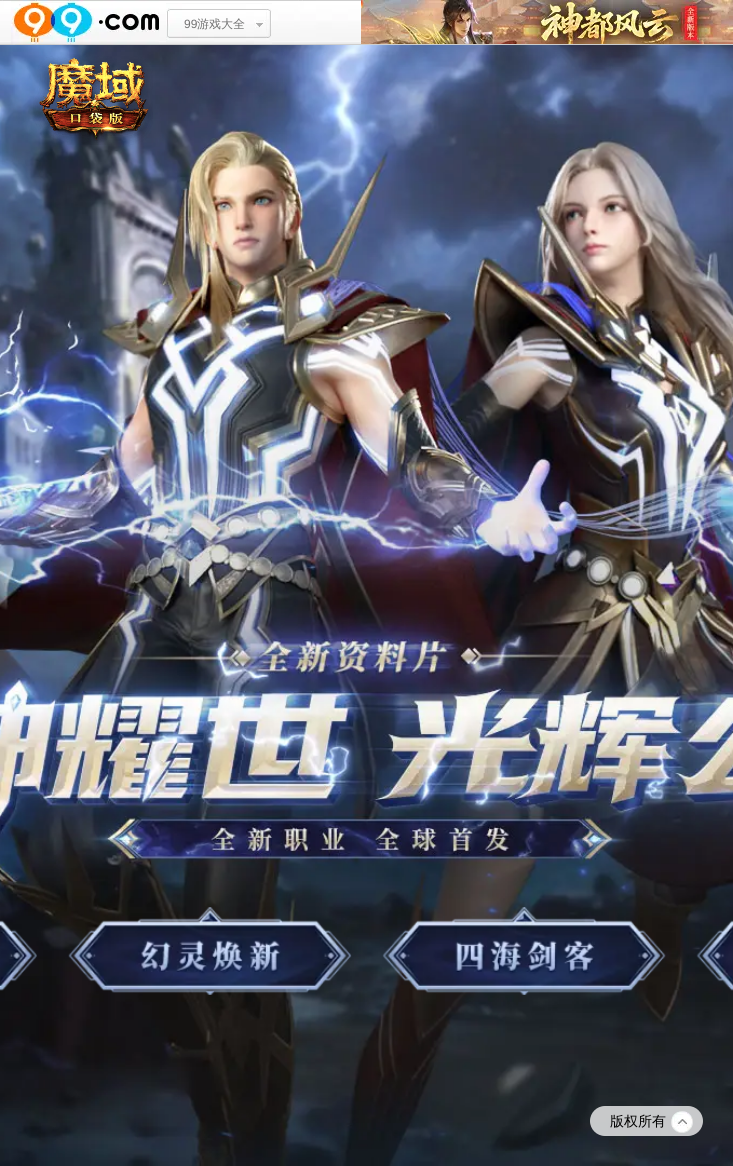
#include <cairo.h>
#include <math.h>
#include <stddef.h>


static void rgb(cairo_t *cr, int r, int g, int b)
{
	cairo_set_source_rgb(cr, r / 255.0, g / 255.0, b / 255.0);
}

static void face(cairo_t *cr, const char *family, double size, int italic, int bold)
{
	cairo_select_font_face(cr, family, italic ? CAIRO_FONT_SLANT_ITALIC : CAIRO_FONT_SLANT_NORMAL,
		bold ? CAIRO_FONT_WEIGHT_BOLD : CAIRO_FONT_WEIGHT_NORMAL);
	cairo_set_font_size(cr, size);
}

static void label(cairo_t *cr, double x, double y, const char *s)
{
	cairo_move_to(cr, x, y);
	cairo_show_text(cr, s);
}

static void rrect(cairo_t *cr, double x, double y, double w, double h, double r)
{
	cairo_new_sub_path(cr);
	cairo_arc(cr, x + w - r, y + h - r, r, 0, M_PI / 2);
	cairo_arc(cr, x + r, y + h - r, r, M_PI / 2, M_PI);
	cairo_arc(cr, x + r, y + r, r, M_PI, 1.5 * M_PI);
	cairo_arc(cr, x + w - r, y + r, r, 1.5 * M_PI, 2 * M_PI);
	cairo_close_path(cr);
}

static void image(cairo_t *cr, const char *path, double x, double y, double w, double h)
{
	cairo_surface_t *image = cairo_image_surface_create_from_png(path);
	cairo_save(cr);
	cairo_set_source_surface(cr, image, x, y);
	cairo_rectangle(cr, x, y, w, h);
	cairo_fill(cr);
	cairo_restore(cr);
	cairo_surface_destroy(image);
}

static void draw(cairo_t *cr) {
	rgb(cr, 255, 255, 255);
	cairo_paint(cr);
	image(cr, "image0.png", 0, 0, 733, 45);
	image(cr, "image1.png", 11, 0, 148, 45);
	image(cr, "image2.png", 166, 3, 106, 39);
	image(cr, "image3.png", 254, 9, 18, 35);
	face(cr, "Liberation Sans", 12, 0, 0);
	rgb(cr, 114, 114, 114);
	label(cr, 184, 28, "99");
	face(cr, "WenQuanYi Zen Hei Medium", 12, 0, 0);
	label(cr, 197, 28, "游戏大全");
	image(cr, "image4.png", 361, 0, 372, 44);
	image(cr, "image5.png", 0, 45, 733, 1121);
	image(cr, "image6.png", 0, 920, 37, 71);
	image(cr, "image7.png", 68, 907, 284, 88);
	image(cr, "image8.png", 382, 907, 284, 88);
	image(cr, "image9.png", 696, 920, 37, 71);
	image(cr, "image10.png", 33, 54, 120, 91);
	cairo_set_source_rgba(cr, 1, 1, 1, 0.75);
	rrect(cr, 590, 1106, 113, 30, 15);
	cairo_fill(cr);
	face(cr, "WenQuanYi Zen Hei Medium", 14, 0, 0);
	rgb(cr, 0, 0, 0);
	label(cr, 610, 1126, "版权所有");
	image(cr, "image11.png", 671, 1111, 22, 22);
}

int main(void) {
	cairo_surface_t *surface = cairo_image_surface_create(CAIRO_FORMAT_RGB24, 733, 1166);
	cairo_t *cr = cairo_create(surface);
	cairo_font_options_t *options = cairo_font_options_create();
	cairo_font_options_set_hint_metrics(options, CAIRO_HINT_METRICS_OFF);
	cairo_font_options_set_hint_style(options, CAIRO_HINT_STYLE_NONE);
	cairo_set_font_options(cr, options);
	cairo_set_miter_limit(cr, 4);
	draw(cr);
	cairo_surface_write_to_png(surface, "render.png");
	cairo_font_options_destroy(options);
	cairo_destroy(cr);
	cairo_surface_destroy(surface);
	return 0;
}
